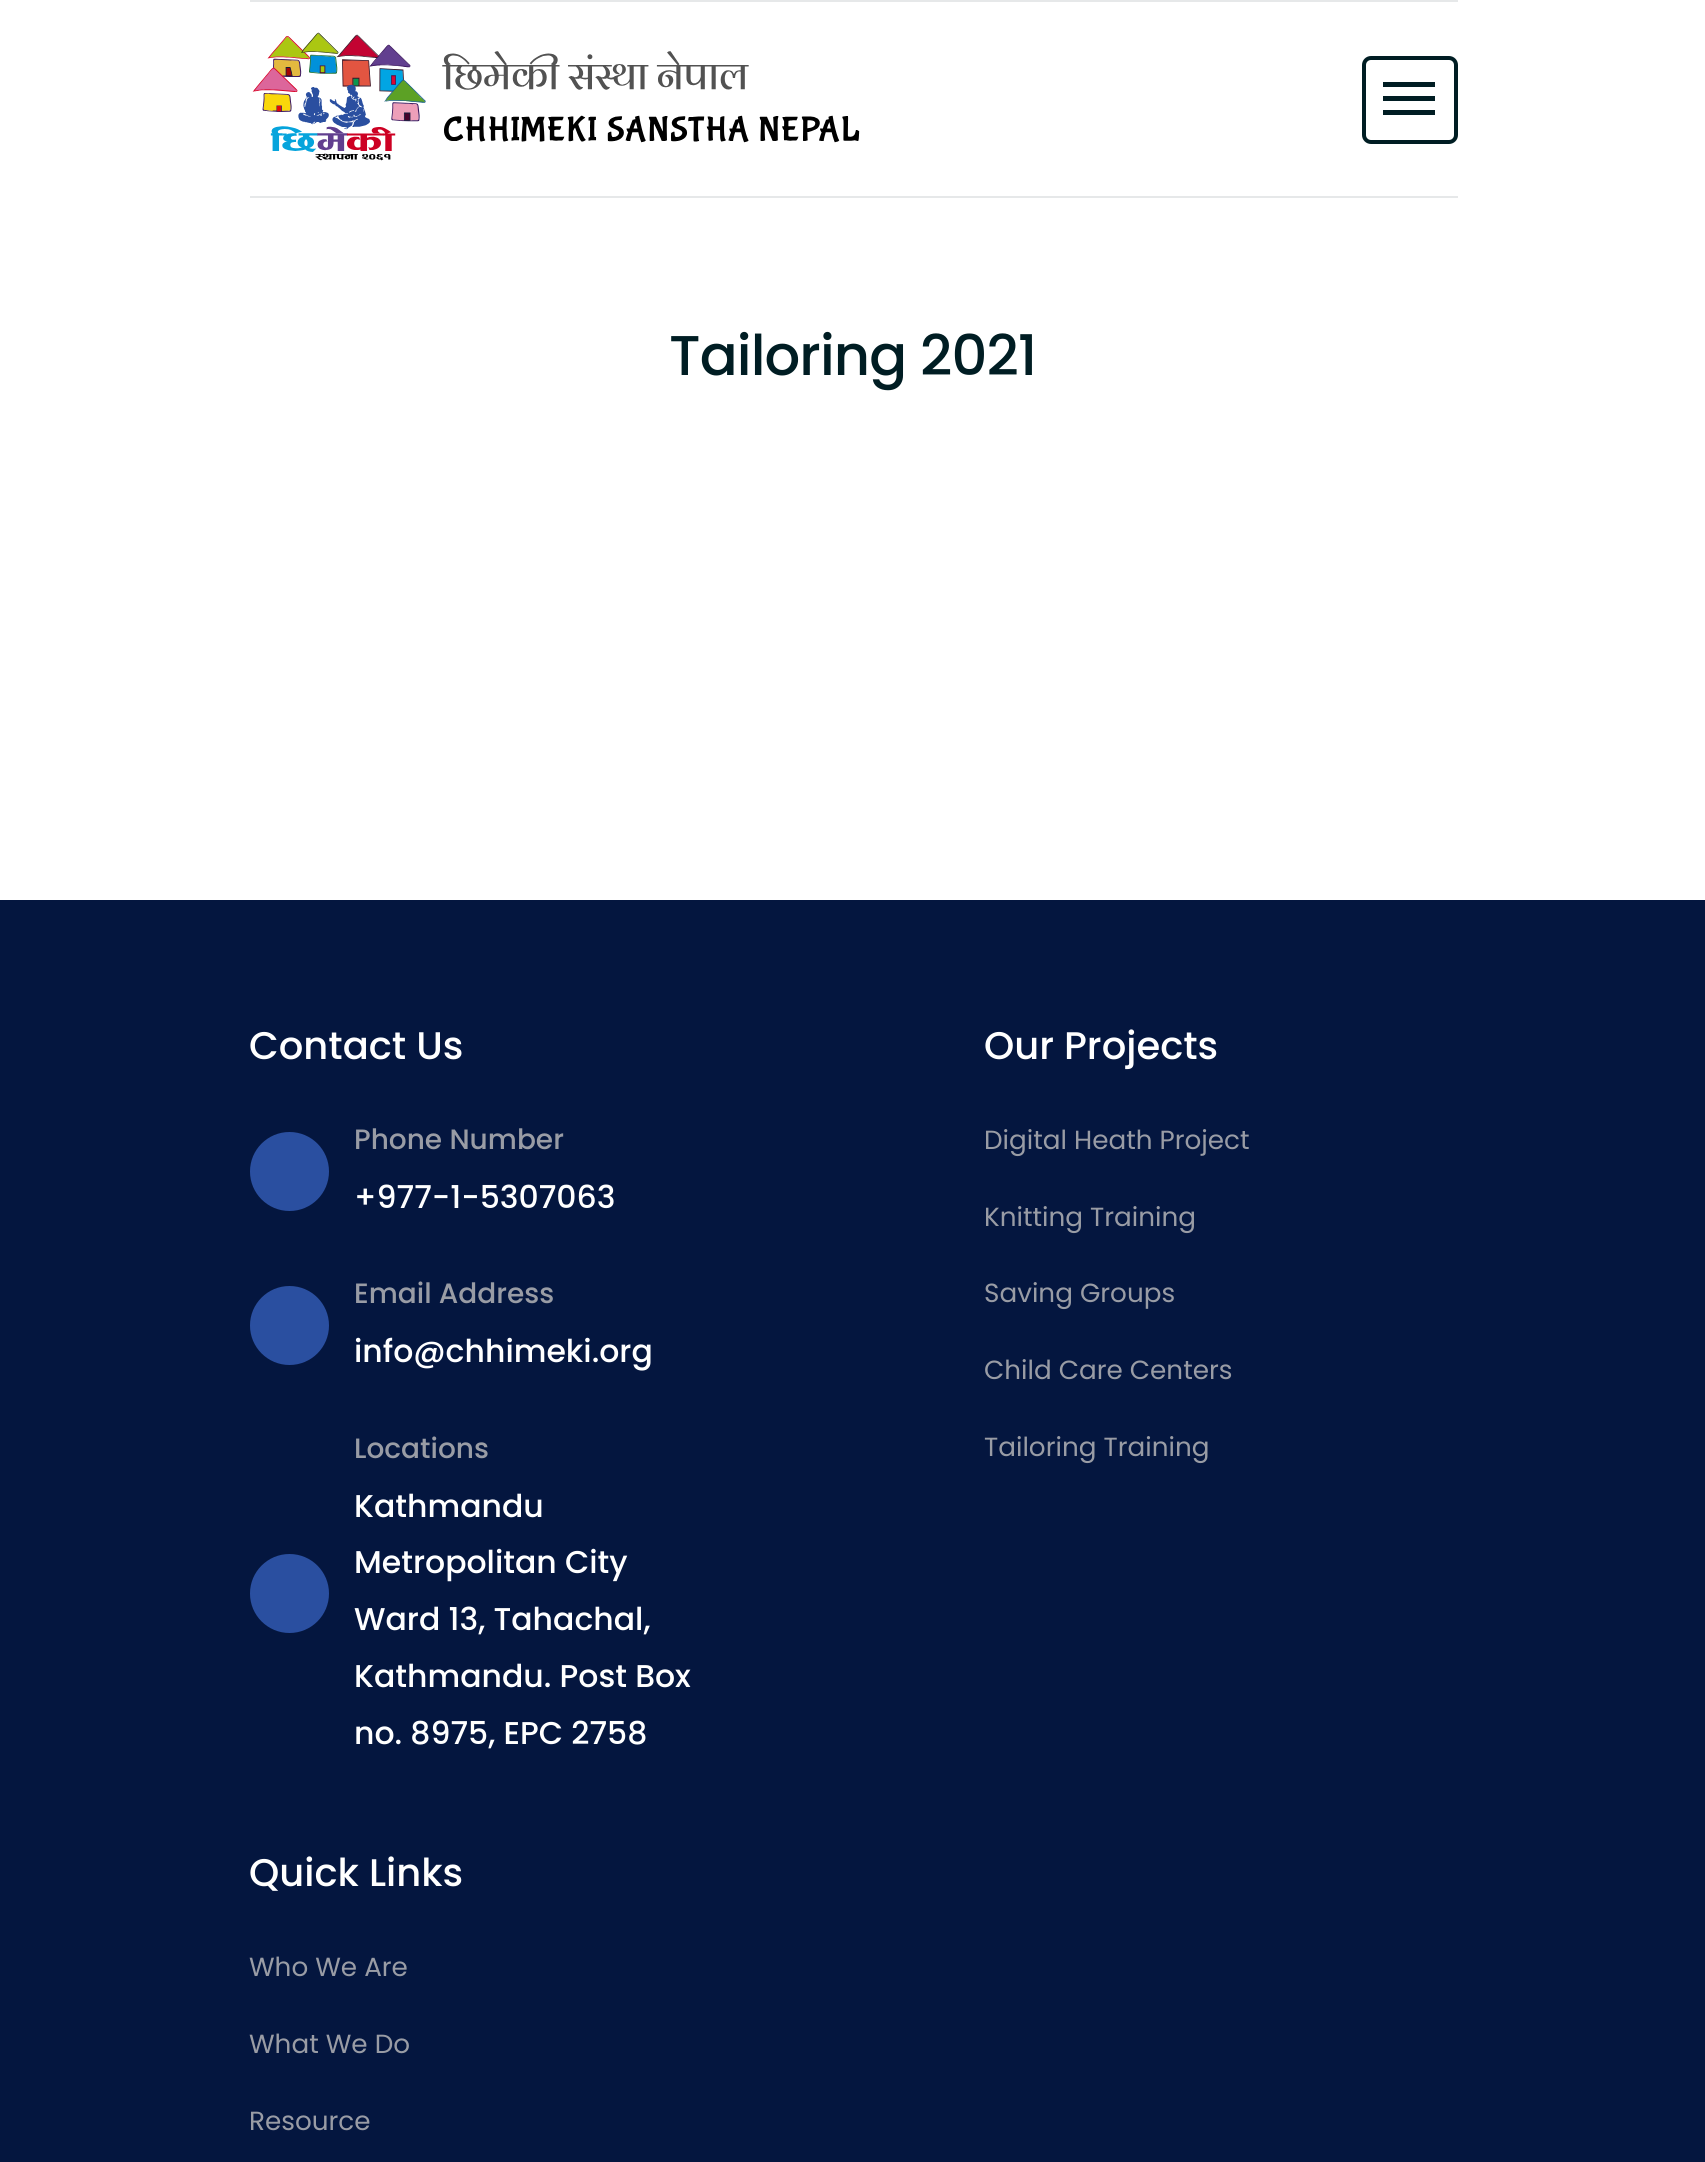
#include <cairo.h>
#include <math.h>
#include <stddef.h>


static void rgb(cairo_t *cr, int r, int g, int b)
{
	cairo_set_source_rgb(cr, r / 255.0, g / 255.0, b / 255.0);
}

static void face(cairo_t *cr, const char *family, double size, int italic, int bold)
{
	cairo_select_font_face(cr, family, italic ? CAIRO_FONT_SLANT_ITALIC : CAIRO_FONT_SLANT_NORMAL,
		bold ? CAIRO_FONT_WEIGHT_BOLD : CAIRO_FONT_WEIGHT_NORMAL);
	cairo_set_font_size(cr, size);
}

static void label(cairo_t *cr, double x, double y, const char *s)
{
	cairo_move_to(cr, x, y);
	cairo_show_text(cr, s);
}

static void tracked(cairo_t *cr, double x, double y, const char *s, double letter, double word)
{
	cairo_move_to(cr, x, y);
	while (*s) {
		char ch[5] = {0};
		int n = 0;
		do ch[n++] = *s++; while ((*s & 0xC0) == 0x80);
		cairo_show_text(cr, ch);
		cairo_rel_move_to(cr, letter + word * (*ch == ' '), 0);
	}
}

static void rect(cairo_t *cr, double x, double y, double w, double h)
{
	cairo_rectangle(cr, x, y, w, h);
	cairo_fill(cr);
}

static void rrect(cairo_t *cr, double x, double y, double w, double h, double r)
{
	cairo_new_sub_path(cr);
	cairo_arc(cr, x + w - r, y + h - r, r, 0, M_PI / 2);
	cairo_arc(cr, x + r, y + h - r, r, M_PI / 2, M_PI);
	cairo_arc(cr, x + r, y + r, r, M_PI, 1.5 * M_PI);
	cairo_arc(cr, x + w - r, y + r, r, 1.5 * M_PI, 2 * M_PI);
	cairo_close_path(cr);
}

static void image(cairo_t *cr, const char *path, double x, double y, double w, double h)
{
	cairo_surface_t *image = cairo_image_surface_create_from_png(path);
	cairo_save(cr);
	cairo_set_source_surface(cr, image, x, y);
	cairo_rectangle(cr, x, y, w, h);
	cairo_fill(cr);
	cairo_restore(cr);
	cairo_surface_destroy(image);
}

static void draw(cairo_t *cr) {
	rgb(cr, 255, 255, 255);
	cairo_paint(cr);
	rgb(cr, 230, 232, 233);
	rect(cr, 250, 0, 1208, 2);
	rect(cr, 250, 196, 1208, 2);
	image(cr, "image0.png", 252, 32, 608, 129);
	rrect(cr, 1364, 58, 92, 84, 7);
	rgb(cr, 0, 29, 35);
	cairo_set_line_width(cr, 4);
	cairo_stroke(cr);
	rect(cr, 1383, 96, 52, 5);
	rect(cr, 1383, 82, 52, 5);
	rect(cr, 1383, 110, 52, 5);
	face(cr, "Poppins Medium", 56, 0, 0);
	tracked(cr, 669, 375, "Tailoring 2021", -0.9, 0);
	rgb(cr, 4, 22, 63);
	rect(cr, 0, 900, 1705, 1262);
	face(cr, "Poppins Medium", 38.5, 0, 0);
	rgb(cr, 255, 255, 255);
	label(cr, 249, 1059, "Contact Us");
	rgb(cr, 42, 79, 160);
	cairo_new_path(cr);
	cairo_arc(cr, 289.5, 1171.5, 39.5, 0, 2 * M_PI);
	cairo_fill(cr);
	face(cr, "Poppins Medium", 28, 0, 0);
	rgb(cr, 153, 156, 165);
	label(cr, 354, 1149, "Phone Number");
	face(cr, "Poppins Medium", 31.5, 0, 0);
	rgb(cr, 255, 255, 255);
	label(cr, 354, 1208, "+977-1-5307063");
	rgb(cr, 42, 79, 160);
	cairo_new_path(cr);
	cairo_arc(cr, 289.5, 1325.5, 39.5, 0, 2 * M_PI);
	cairo_fill(cr);
	face(cr, "Poppins Medium", 28, 0, 0);
	rgb(cr, 153, 156, 165);
	label(cr, 354, 1303, "Email Address");
	face(cr, "Poppins Medium", 31.5, 0, 0);
	rgb(cr, 255, 255, 255);
	label(cr, 354, 1362, "info@chhimeki.org");
	rgb(cr, 42, 79, 160);
	cairo_new_path(cr);
	cairo_arc(cr, 289.5, 1593.5, 39.5, 0, 2 * M_PI);
	cairo_fill(cr);
	face(cr, "Poppins Medium", 28, 0, 0);
	rgb(cr, 153, 156, 165);
	label(cr, 354, 1458, "Locations");
	face(cr, "Poppins Medium", 31.5, 0, 0);
	rgb(cr, 255, 255, 255);
	label(cr, 354, 1517, "Kathmandu");
	label(cr, 354, 1573, "Metropolitan City");
	label(cr, 354, 1630, "Ward 13, Tahachal,");
	label(cr, 354, 1687, "Kathmandu. Post Box");
	label(cr, 354, 1744, "no. 8975, EPC 2758");
	face(cr, "Poppins Medium", 38.5, 0, 0);
	label(cr, 984, 1059, "Our Projects");
	face(cr, "Poppins", 26.25, 0, 0);
	rgb(cr, 153, 156, 165);
	label(cr, 984, 1149, "Digital Heath Project");
	label(cr, 984, 1226, "Knitting Training");
	label(cr, 984, 1302, "Saving Groups");
	label(cr, 984, 1379, "Child Care Centers");
	label(cr, 984, 1456, "Tailoring Training");
	face(cr, "Poppins Medium", 38.5, 0, 0);
	rgb(cr, 255, 255, 255);
	label(cr, 249, 1886, "Quick Links");
	face(cr, "Poppins", 26.25, 0, 0);
	rgb(cr, 153, 156, 165);
	label(cr, 249, 1976, "Who We Are");
	label(cr, 249, 2053, "What We Do");
	label(cr, 249, 2130, "Resource");
}

int main(void) {
	cairo_surface_t *surface = cairo_image_surface_create(CAIRO_FORMAT_RGB24, 1705, 2162);
	cairo_t *cr = cairo_create(surface);
	cairo_font_options_t *options = cairo_font_options_create();
	cairo_font_options_set_hint_metrics(options, CAIRO_HINT_METRICS_OFF);
	cairo_font_options_set_hint_style(options, CAIRO_HINT_STYLE_NONE);
	cairo_set_font_options(cr, options);
	cairo_set_miter_limit(cr, 4);
	draw(cr);
	cairo_surface_write_to_png(surface, "render.png");
	cairo_font_options_destroy(options);
	cairo_destroy(cr);
	cairo_surface_destroy(surface);
	return 0;
}
